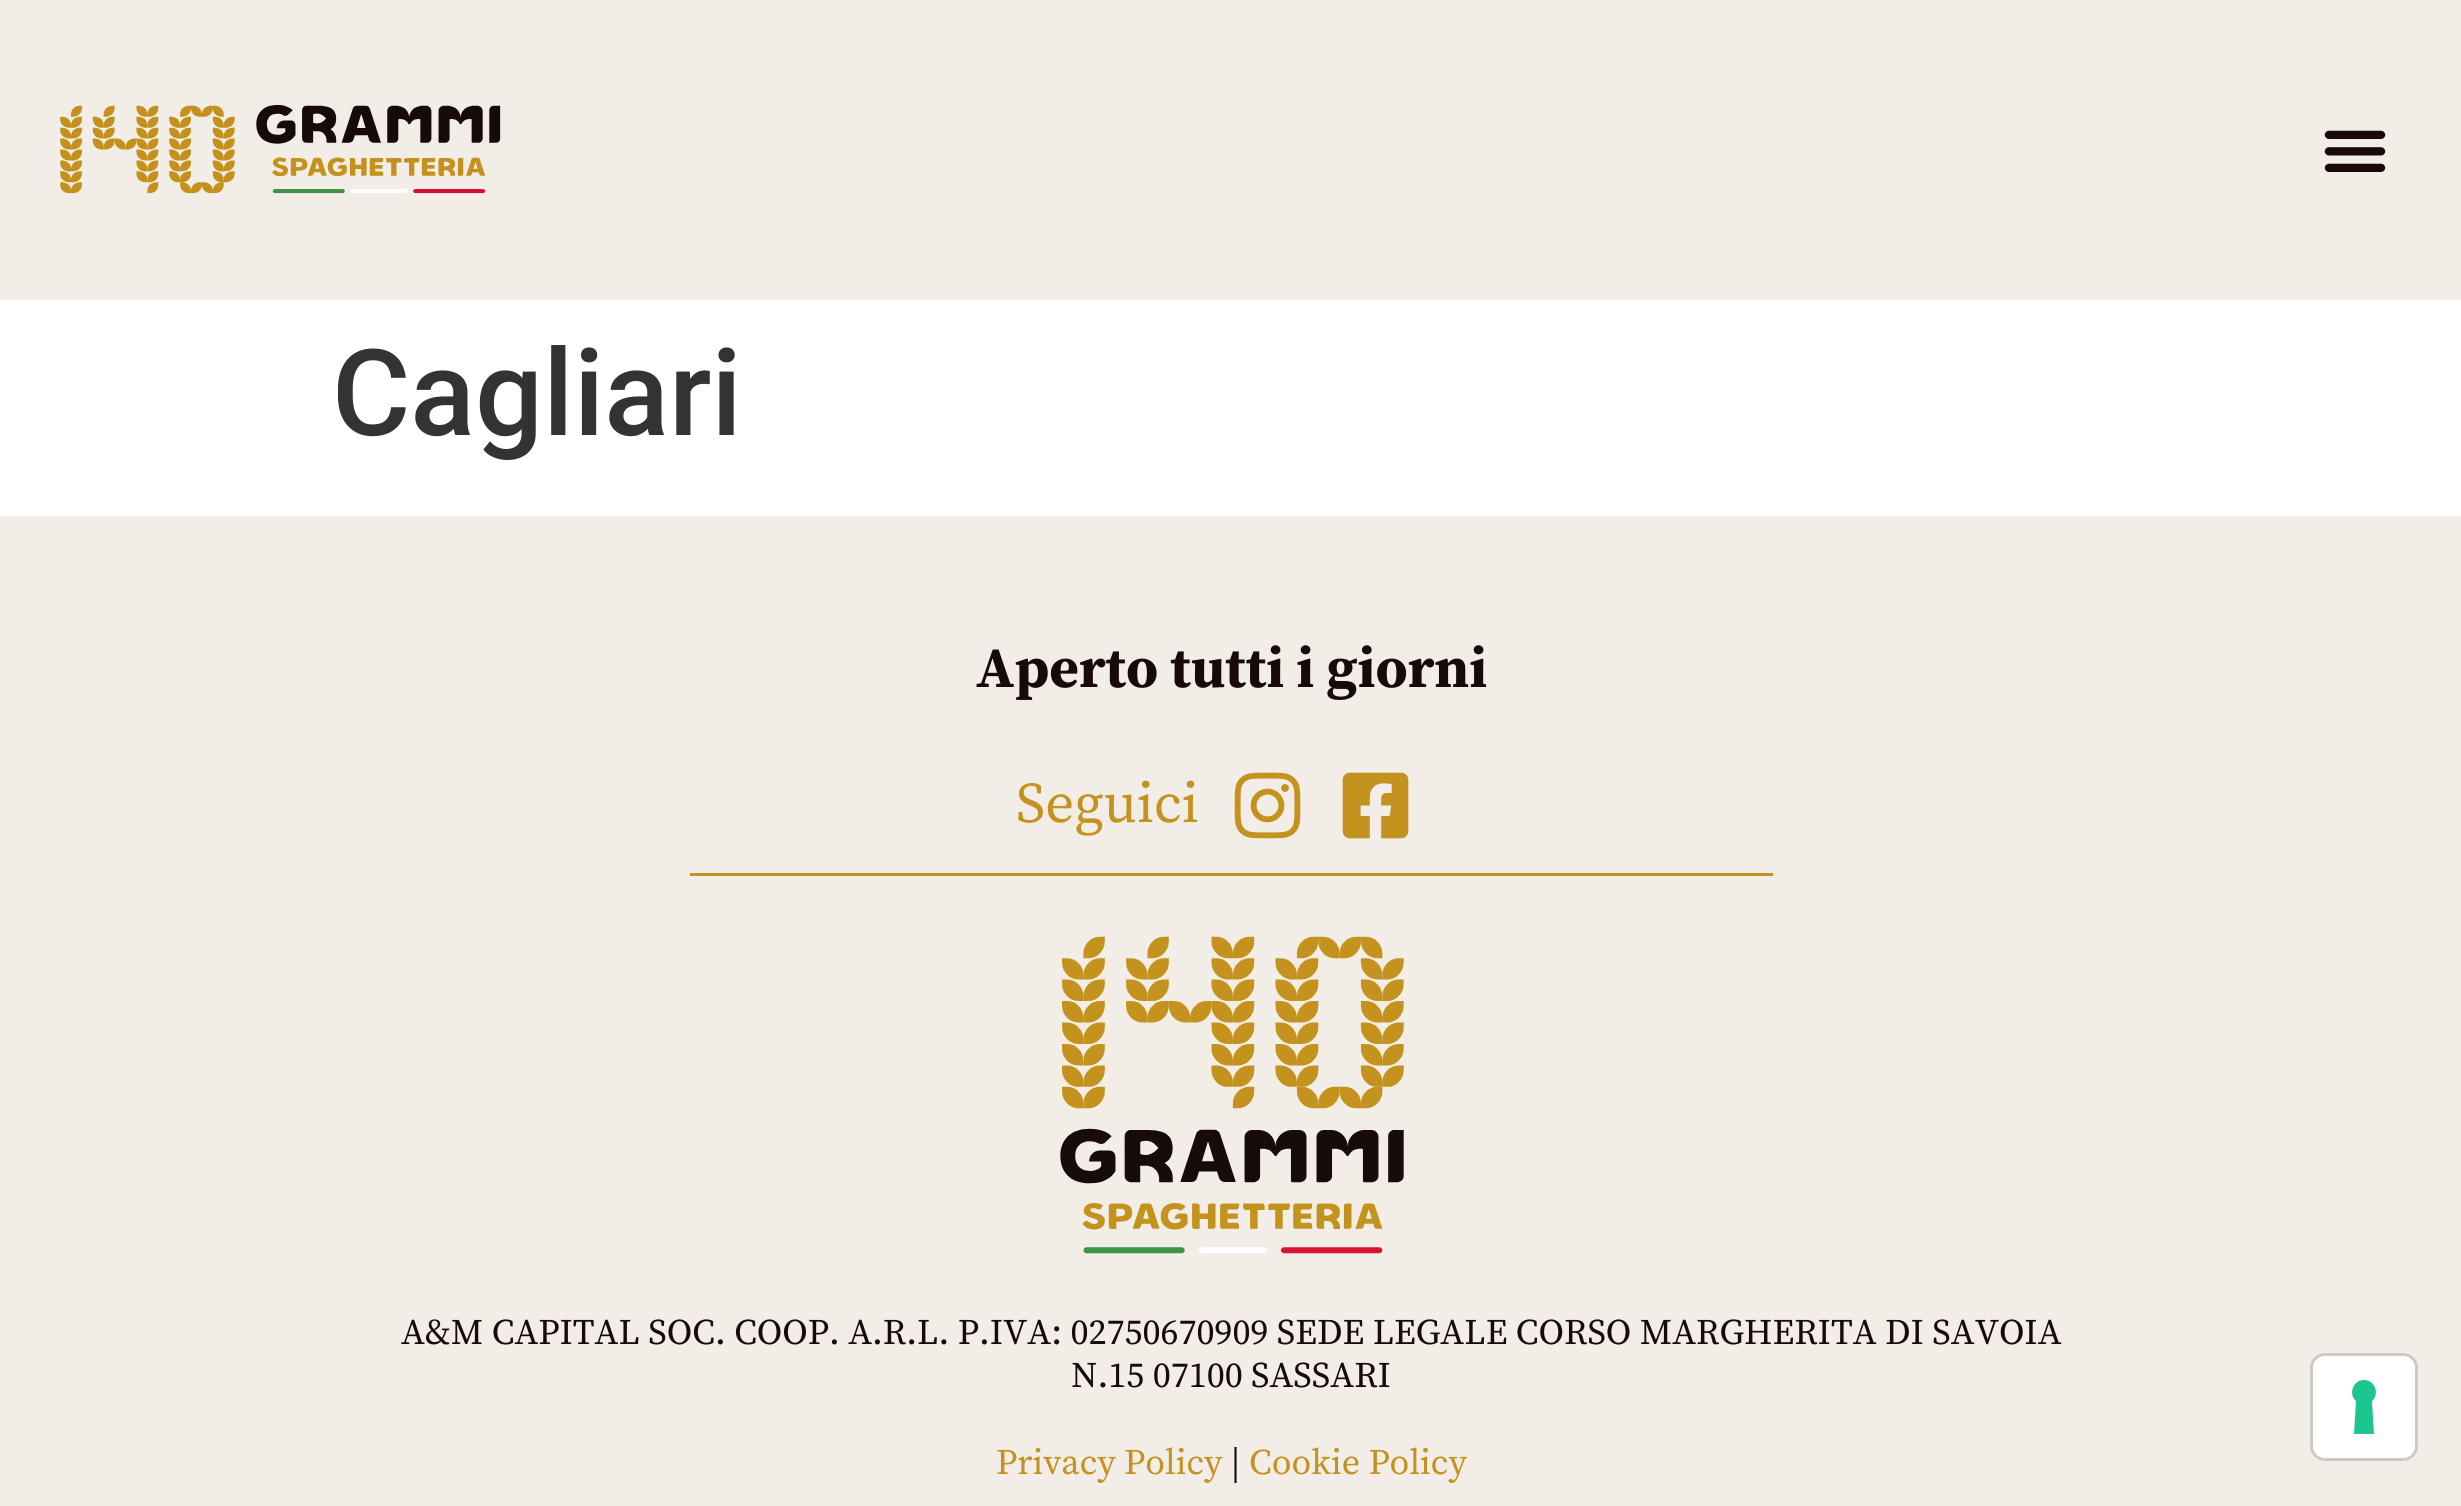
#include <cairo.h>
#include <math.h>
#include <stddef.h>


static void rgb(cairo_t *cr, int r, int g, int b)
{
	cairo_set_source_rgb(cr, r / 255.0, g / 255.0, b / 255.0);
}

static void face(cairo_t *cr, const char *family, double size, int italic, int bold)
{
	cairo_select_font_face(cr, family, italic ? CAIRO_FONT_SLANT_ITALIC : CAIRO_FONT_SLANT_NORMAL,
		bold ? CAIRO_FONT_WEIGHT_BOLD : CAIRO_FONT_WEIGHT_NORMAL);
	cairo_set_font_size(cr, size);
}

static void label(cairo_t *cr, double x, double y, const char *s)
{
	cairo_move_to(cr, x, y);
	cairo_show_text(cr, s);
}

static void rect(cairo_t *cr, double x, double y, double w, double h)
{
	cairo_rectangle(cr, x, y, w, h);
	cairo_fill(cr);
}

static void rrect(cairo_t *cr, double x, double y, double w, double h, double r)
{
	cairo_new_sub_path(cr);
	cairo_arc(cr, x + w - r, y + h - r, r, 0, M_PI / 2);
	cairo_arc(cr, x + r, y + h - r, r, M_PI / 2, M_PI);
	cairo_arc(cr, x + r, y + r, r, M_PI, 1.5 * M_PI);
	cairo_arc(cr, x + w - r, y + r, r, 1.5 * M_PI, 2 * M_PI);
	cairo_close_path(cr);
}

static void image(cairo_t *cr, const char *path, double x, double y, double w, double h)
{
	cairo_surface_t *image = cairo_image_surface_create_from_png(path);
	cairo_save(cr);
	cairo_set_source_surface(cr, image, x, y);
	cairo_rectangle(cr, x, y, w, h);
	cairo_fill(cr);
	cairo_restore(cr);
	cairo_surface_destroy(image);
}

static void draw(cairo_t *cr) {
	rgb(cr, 255, 255, 255);
	cairo_paint(cr);
	rgb(cr, 242, 237, 230);
	rect(cr, 0, 0, 2461, 300);
	image(cr, "image0.png", 60, 105, 441, 89);
	image(cr, "image1.png", 2324, 130, 62, 42);
	face(cr, "Roboto Medium", 120, 0, 0);
	rgb(cr, 51, 51, 51);
	label(cr, 332, 435, "Cagliari");
	rgb(cr, 242, 237, 230);
	rect(cr, 0, 516, 2461, 990);
	rgb(cr, 196, 146, 30);
	rect(cr, 690, 873, 1083, 3);
	face(cr, "Source Serif Pro", 57, 0, 1);
	rgb(cr, 24, 10, 10);
	label(cr, 976, 687, "Aperto tutti i giorni");
	face(cr, "Source Serif Pro", 57, 0, 0);
	rgb(cr, 196, 146, 30);
	label(cr, 1016, 822, "Seguici");
	image(cr, "image2.png", 1234, 772, 67, 67);
	image(cr, "image3.png", 1342, 772, 67, 67);
	image(cr, "image4.png", 1060, 936, 344, 318);
	face(cr, "Source Serif Pro", 36, 0, 0);
	rgb(cr, 24, 10, 10);
	label(cr, 401, 1344, "A&M CAPITAL SOC. COOP. A.R.L. P.IVA: 02750670909 SEDE LEGALE CORSO MARGHERITA DI SAVOIA");
	label(cr, 1071, 1387, "N.15 07100 SASSARI");
	rgb(cr, 196, 146, 30);
	label(cr, 996, 1474, "Privacy Policy");
	rgb(cr, 24, 10, 10);
	label(cr, 1231, 1474, "|");
	rgb(cr, 196, 146, 30);
	label(cr, 1249, 1474, "Cookie Policy");
	rrect(cr, 2311.5, 1354.5, 105, 105, 13.5);
	rgb(cr, 206, 201, 196);
	cairo_set_line_width(cr, 3);
	cairo_stroke(cr);
	rgb(cr, 255, 255, 255);
	rrect(cr, 2313, 1356, 102, 102, 12);
	cairo_fill(cr);
	rgb(cr, 28, 198, 145);
	cairo_set_fill_rule(cr, CAIRO_FILL_RULE_EVEN_ODD);
	cairo_new_path(cr);
	cairo_move_to(cr, 2364, 1380);
	cairo_curve_to(cr, 2375, 1380, 2380, 1394, 2372, 1401);
	cairo_line_to(cr, 2374, 1434);
	cairo_line_to(cr, 2354, 1434);
	cairo_line_to(cr, 2356, 1401);
	cairo_curve_to(cr, 2348, 1394, 2353, 1380, 2364, 1380);
	cairo_close_path(cr);
	cairo_fill(cr);
}

int main(void) {
	cairo_surface_t *surface = cairo_image_surface_create(CAIRO_FORMAT_RGB24, 2461, 1506);
	cairo_t *cr = cairo_create(surface);
	cairo_font_options_t *options = cairo_font_options_create();
	cairo_font_options_set_hint_metrics(options, CAIRO_HINT_METRICS_OFF);
	cairo_font_options_set_hint_style(options, CAIRO_HINT_STYLE_NONE);
	cairo_set_font_options(cr, options);
	cairo_set_miter_limit(cr, 4);
	draw(cr);
	cairo_surface_write_to_png(surface, "render.png");
	cairo_font_options_destroy(options);
	cairo_destroy(cr);
	cairo_surface_destroy(surface);
	return 0;
}
